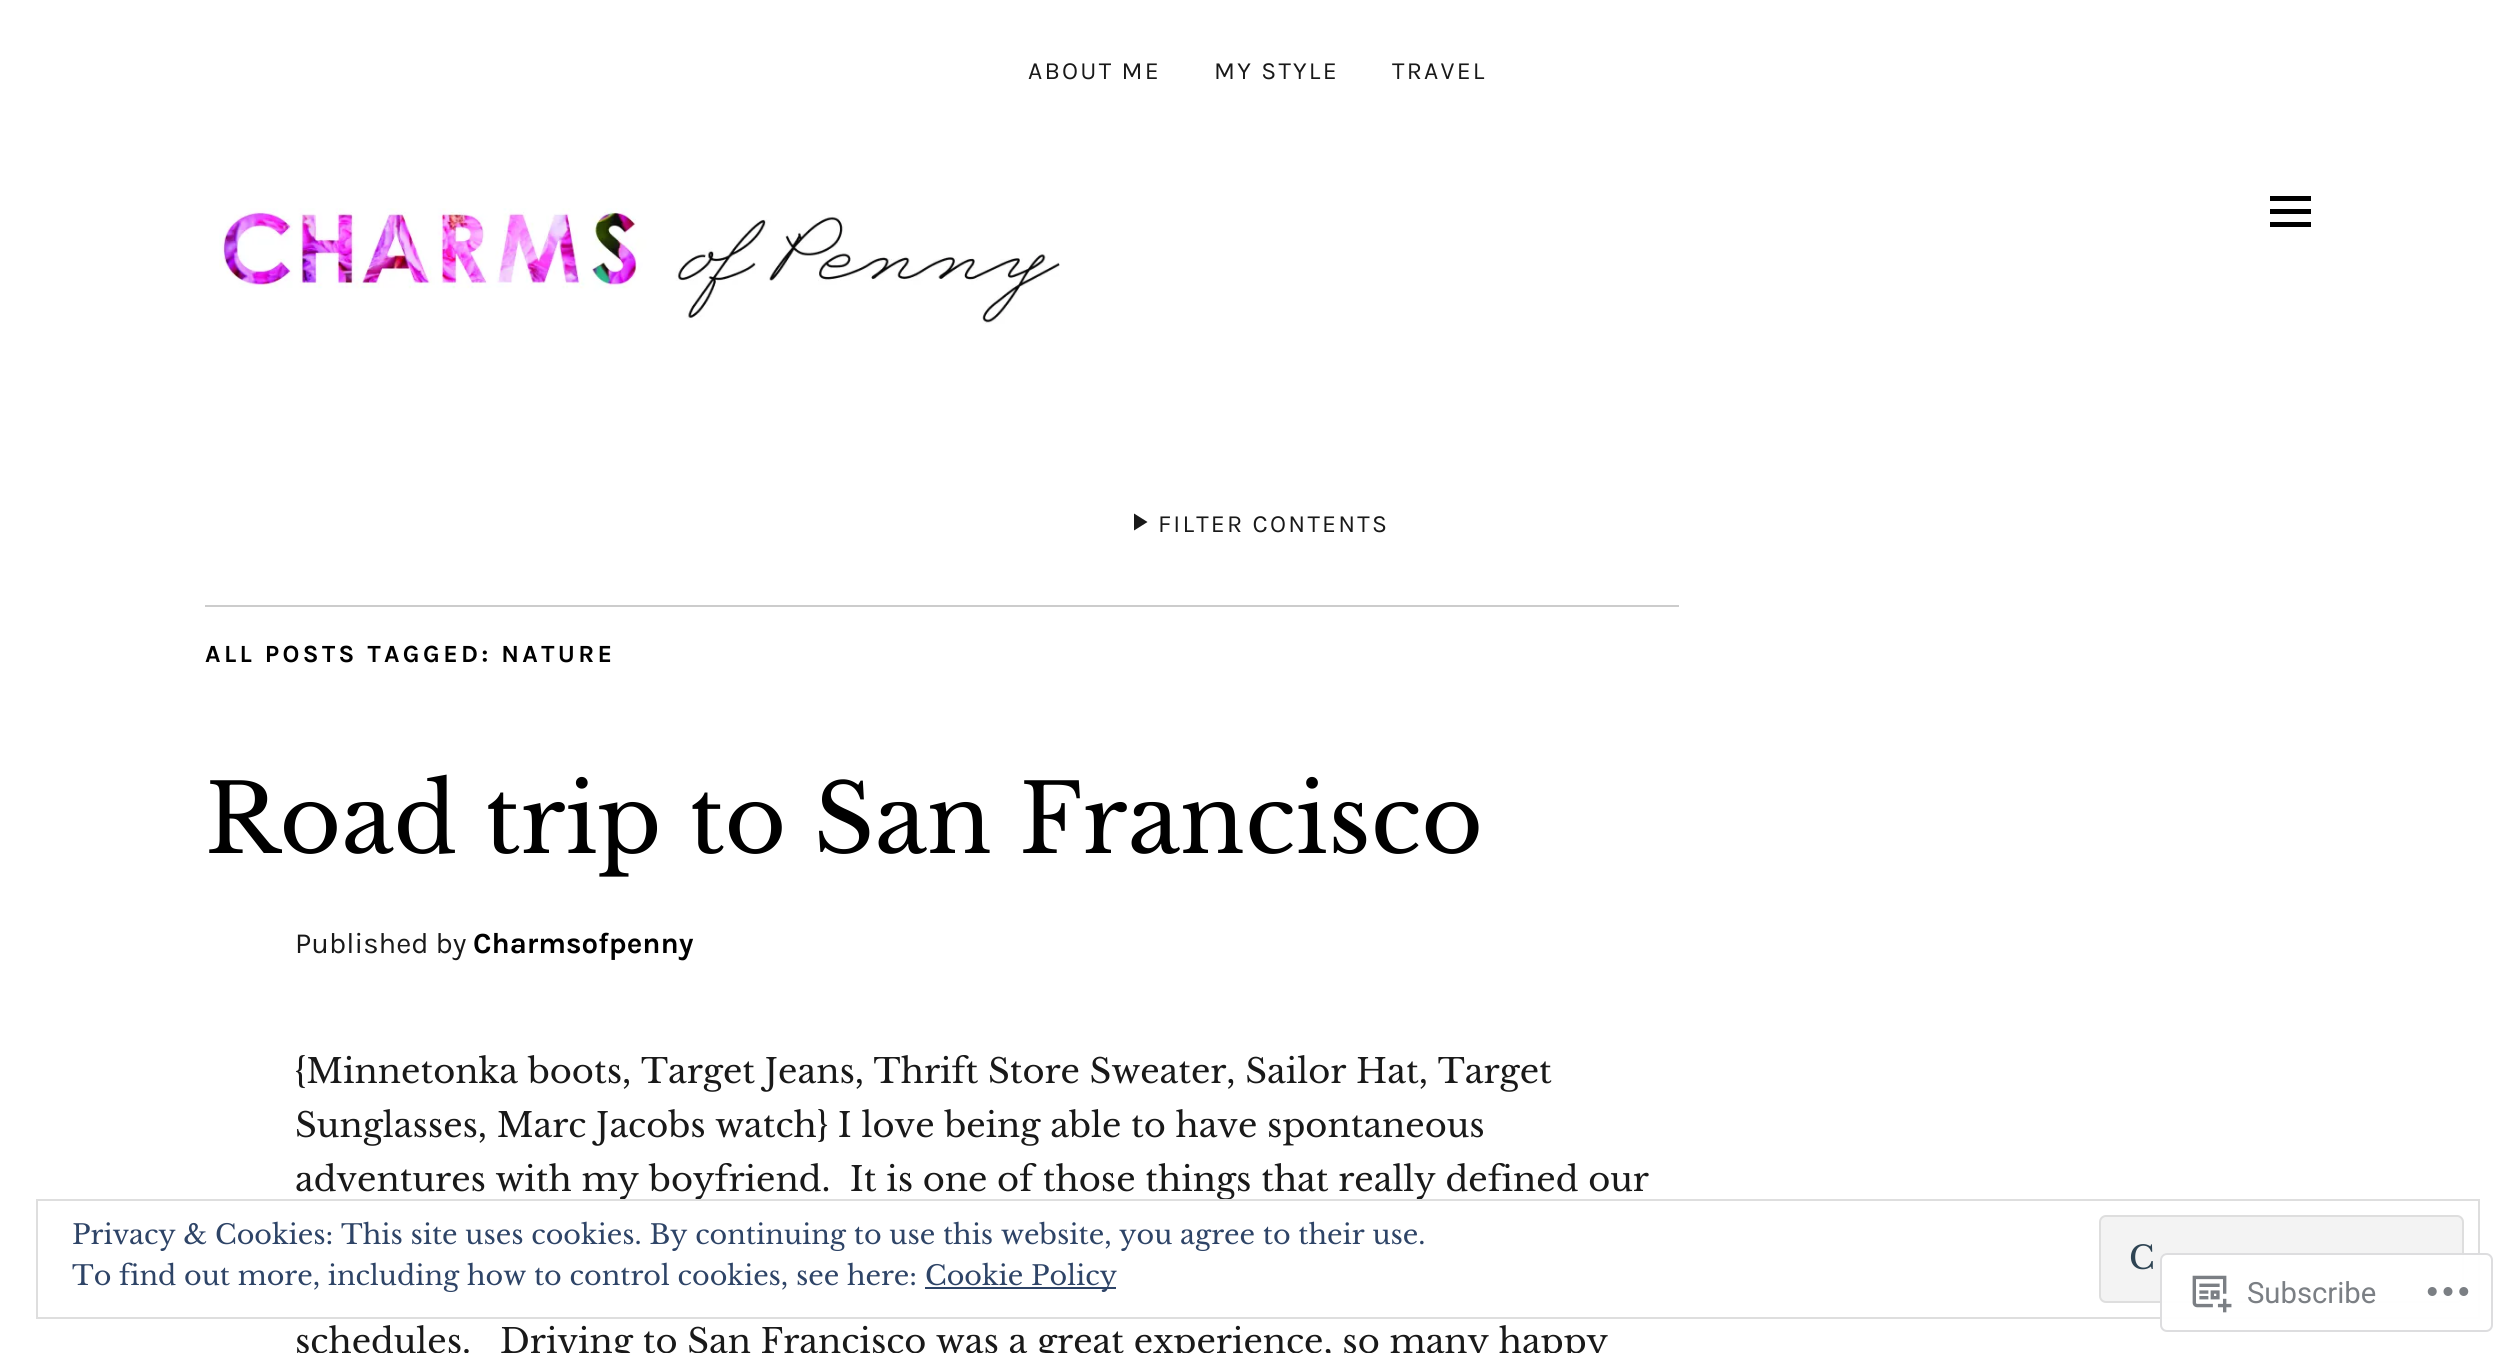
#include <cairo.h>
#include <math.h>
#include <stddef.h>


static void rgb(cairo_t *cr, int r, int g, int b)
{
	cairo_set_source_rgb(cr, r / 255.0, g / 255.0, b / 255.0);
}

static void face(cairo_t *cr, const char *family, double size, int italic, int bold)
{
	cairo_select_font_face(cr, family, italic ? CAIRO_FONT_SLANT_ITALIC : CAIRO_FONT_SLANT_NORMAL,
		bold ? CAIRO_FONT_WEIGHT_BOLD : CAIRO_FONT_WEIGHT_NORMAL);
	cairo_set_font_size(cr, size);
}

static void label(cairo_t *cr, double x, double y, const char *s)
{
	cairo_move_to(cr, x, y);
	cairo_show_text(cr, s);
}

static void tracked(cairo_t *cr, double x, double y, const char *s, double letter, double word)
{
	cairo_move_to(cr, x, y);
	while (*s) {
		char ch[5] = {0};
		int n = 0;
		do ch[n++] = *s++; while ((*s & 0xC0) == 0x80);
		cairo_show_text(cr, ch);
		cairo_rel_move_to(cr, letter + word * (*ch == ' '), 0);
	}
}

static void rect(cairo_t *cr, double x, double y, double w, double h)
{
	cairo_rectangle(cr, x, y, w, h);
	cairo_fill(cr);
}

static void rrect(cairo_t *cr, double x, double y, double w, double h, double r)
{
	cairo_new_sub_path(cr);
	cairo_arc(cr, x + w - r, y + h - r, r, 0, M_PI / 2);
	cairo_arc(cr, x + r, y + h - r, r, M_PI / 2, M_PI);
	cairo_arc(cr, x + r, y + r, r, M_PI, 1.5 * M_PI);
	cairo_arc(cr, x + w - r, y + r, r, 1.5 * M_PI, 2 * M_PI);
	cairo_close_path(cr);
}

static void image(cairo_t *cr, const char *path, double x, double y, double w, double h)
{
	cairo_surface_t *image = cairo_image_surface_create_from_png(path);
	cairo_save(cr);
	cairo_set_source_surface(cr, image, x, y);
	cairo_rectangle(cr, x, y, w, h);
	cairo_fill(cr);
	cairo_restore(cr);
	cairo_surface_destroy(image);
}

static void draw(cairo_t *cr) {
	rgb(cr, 255, 255, 255);
	cairo_paint(cr);
	face(cr, "Karla", 24.75, 0, 0);
	rgb(cr, 25, 25, 25);
	tracked(cr, 1028, 79, "ABOUT ME", 2.25, 0);
	tracked(cr, 1214, 79, "MY STYLE", 2.25, 0);
	tracked(cr, 1392, 79, "TRAVEL", 2.25, 0);
	image(cr, "image0.png", 219, 208, 841, 116);
	rgb(cr, 0, 0, 0);
	cairo_new_path(cr);
	cairo_move_to(cr, 2270, 227);
	cairo_line_to(cr, 2270, 222);
	cairo_line_to(cr, 2311, 222);
	cairo_line_to(cr, 2311, 227);
	cairo_close_path(cr);
	cairo_move_to(cr, 2270, 196);
	cairo_line_to(cr, 2311, 196);
	cairo_line_to(cr, 2311, 201);
	cairo_line_to(cr, 2270, 201);
	cairo_close_path(cr);
	cairo_move_to(cr, 2270, 214);
	cairo_line_to(cr, 2270, 209);
	cairo_line_to(cr, 2311, 209);
	cairo_line_to(cr, 2311, 214);
	cairo_close_path(cr);
	cairo_fill(cr);
	rgb(cr, 25, 25, 25);
	cairo_new_path(cr);
	cairo_move_to(cr, 1134, 513.5);
	cairo_line_to(cr, 1147.5, 522);
	cairo_line_to(cr, 1134, 530.5);
	cairo_close_path(cr);
	cairo_fill(cr);
	tracked(cr, 1158, 532, "FILTER CONTENTS", 2.25, 0);
	rgb(cr, 204, 204, 204);
	rect(cr, 205, 605, 1474, 2);
	face(cr, "Karla", 24.75, 0, 1);
	rgb(cr, 0, 0, 0);
	tracked(cr, 205, 662, "ALL POSTS TAGGED: NATURE", 3.4, 0);
	face(cr, "Libre Baskerville", 94.5, 0, 0);
	label(cr, 205, 853, "Road trip to San Francisco");
	face(cr, "Karla", 29.25, 0, 0);
	rgb(cr, 25, 25, 25);
	label(cr, 295, 953, "Published by");
	face(cr, "Karla", 29.25, 0, 1);
	rgb(cr, 0, 0, 0);
	label(cr, 473, 953, "Charmsofpenny");
	face(cr, "Libre Baskerville", 33.75, 0, 0);
	rgb(cr, 25, 25, 25);
	label(cr, 295, 1083, "{Minnetonka boots, Target Jeans, Thrift Store Sweater, Sailor Hat, Target");
	label(cr, 295, 1137, "Sunglasses, Marc Jacobs watch} I love being able to have spontaneous");
	label(cr, 295, 1191, "adventures with my boyfriend.  It is one of those things that really defined our");
	label(cr, 295, 1353, "schedules.   Driving to San Francisco was a great experience, so many happy");
	cairo_rectangle(cr, 37, 1200, 2442, 118);
	rgb(cr, 222, 222, 222);
	cairo_stroke(cr);
	face(cr, "Libre Baskerville", 27, 0, 0);
	rgb(cr, 46, 68, 103);
	label(cr, 72, 1244, "Privacy & Cookies: This site uses cookies. By continuing to use this website, you agree to their use.");
	rgb(cr, 243, 243, 243);
	rrect(cr, 2100, 1216, 363, 86, 6);
	cairo_fill_preserve(cr);
	rgb(cr, 222, 222, 222);
	cairo_stroke(cr);
	face(cr, "Libre Baskerville", 32, 0, 0);
	rgb(cr, 46, 68, 83);
	tracked(cr, 2129, 1269, "C", 2.25, 0);
	face(cr, "Libre Baskerville", 27, 0, 0);
	rgb(cr, 46, 68, 103);
	label(cr, 72, 1285, "To find out more, including how to control cookies, see here:");
	rect(cr, 925, 1287, 191, 2);
	label(cr, 925, 1285, "Cookie Policy");
	cairo_set_source_rgba(cr, 1, 1, 1, 0.98);
	rrect(cr, 2160, 1253, 333, 79, 7);
	cairo_fill(cr);
	rrect(cr, 2161, 1254, 331, 77, 6);
	cairo_set_source_rgba(cr, 0.863, 0.863, 0.871, 0.98);
	cairo_stroke(cr);
	image(cr, "image1.png", 2192, 1275, 40, 38);
	face(cr, "Roboto", 29.25, 0, 0);
	rgb(cr, 123, 127, 132);
	label(cr, 2247, 1303, "Subscribe");
	image(cr, "image2.png", 2427, 1287, 42, 9);
}

int main(void) {
	cairo_surface_t *surface = cairo_image_surface_create(CAIRO_FORMAT_RGB24, 2515, 1353);
	cairo_t *cr = cairo_create(surface);
	cairo_font_options_t *options = cairo_font_options_create();
	cairo_font_options_set_hint_metrics(options, CAIRO_HINT_METRICS_OFF);
	cairo_font_options_set_hint_style(options, CAIRO_HINT_STYLE_NONE);
	cairo_set_font_options(cr, options);
	cairo_set_miter_limit(cr, 4);
	draw(cr);
	cairo_surface_write_to_png(surface, "render.png");
	cairo_font_options_destroy(options);
	cairo_destroy(cr);
	cairo_surface_destroy(surface);
	return 0;
}
